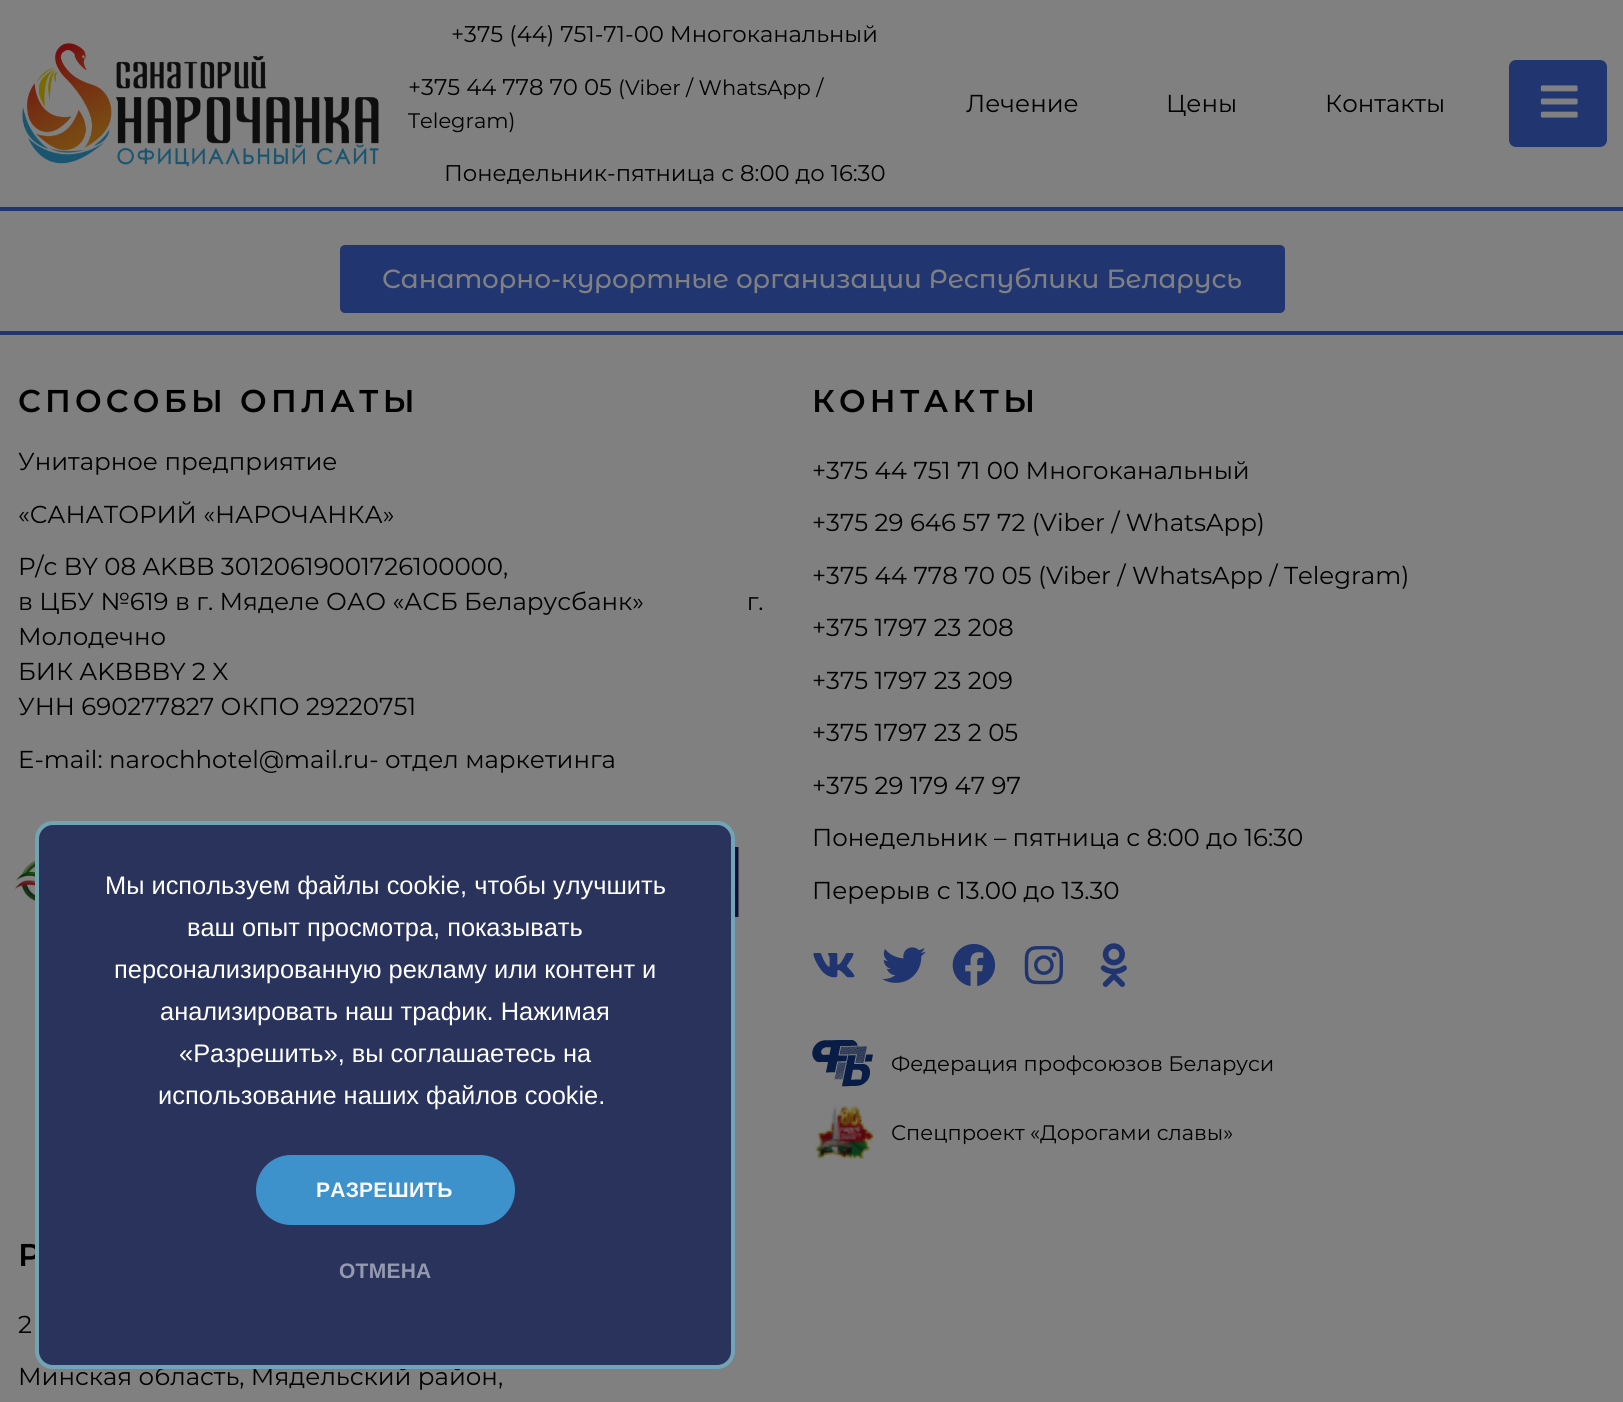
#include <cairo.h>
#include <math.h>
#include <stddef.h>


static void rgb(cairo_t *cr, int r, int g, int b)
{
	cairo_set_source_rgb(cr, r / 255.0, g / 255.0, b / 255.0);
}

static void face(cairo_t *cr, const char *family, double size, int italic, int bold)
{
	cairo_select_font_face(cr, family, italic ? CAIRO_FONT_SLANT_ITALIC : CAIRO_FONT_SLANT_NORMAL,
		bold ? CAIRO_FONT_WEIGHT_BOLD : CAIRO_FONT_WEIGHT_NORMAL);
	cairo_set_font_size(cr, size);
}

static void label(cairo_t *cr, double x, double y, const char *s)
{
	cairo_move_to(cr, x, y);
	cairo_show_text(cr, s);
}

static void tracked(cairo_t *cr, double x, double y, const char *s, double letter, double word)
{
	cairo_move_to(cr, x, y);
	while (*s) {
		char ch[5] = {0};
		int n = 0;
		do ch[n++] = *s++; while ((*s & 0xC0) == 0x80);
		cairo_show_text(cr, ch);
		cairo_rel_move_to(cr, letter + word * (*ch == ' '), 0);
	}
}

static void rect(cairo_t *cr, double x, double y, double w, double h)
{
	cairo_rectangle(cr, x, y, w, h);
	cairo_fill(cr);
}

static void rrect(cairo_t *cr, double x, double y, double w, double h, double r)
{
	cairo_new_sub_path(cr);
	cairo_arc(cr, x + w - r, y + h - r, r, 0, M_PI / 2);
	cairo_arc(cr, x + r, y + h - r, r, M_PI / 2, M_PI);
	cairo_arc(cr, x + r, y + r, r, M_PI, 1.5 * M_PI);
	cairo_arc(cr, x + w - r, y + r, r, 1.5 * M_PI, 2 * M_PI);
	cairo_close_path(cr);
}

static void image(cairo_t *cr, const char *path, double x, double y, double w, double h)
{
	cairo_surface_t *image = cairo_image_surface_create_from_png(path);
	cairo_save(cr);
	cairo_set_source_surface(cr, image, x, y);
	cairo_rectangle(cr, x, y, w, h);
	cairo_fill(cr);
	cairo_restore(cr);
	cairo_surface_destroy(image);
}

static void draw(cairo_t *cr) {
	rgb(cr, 128, 128, 128);
	cairo_paint(cr);
	rgb(cr, 33, 53, 113);
	rect(cr, 0, 207, 1623, 4);
	image(cr, "image0.png", 22, 43, 357, 124);
	face(cr, "Montserrat", 22.75, 0, 0);
	rgb(cr, 0, 0, 0);
	label(cr, 451, 42, "+375 (44) 751-71-00 Многоканальный");
	label(cr, 408, 95, "+375 44 778 70 05");
	face(cr, "Montserrat", 21, 0, 0);
	label(cr, 618, 95, "(Viber / WhatsApp /");
	label(cr, 408, 128, "Telegram)");
	face(cr, "Montserrat", 22.75, 0, 0);
	label(cr, 444, 181, "Понедельник-пятница с 8:00 до 16:30");
	face(cr, "Montserrat", 24.5, 0, 0);
	label(cr, 966, 112, "Лечение");
	label(cr, 1166, 112, "Цены");
	label(cr, 1325, 112, "Контакты");
	rgb(cr, 33, 53, 113);
	rrect(cr, 1509, 60, 98, 87, 7);
	cairo_fill(cr);
	image(cr, "image1.png", 1540, 85, 38, 33);
	rrect(cr, 340, 245, 945, 68, 5);
	cairo_fill(cr);
	face(cr, "Montserrat Alternates Medium", 26.25, 0, 0);
	rgb(cr, 128, 128, 128);
	label(cr, 382, 288, "Санаторно-курортные организации Республики Беларусь");
	rgb(cr, 33, 53, 113);
	rect(cr, 0, 331, 1623, 4);
	face(cr, "Montserrat SemiBold", 31.5, 0, 0);
	rgb(cr, 0, 0, 0);
	tracked(cr, 18, 412, "СПОСОБЫ ОПЛАТЫ", 4.25, 0);
	face(cr, "Montserrat", 24.5, 0, 0);
	label(cr, 18, 470, "Унитарное предприятие");
	label(cr, 18, 523, "«САНАТОРИЙ «НАРОЧАНКА»");
	label(cr, 18, 575, "Р/с BY 08 AKBB 30120619001726100000,");
	label(cr, 18, 610, "в ЦБУ №619 в г. Мяделе ОАО «АСБ Беларусбанк»                г.");
	label(cr, 18, 645, "Молодечно");
	label(cr, 18, 680, "БИК AKBBBY 2 X");
	label(cr, 18, 715, "УНН 690277827 ОКПО 29220751");
	label(cr, 18, 768, "E-mail: narochhotel@mail.ru- отдел маркетинга");
	image(cr, "image2.png", 15, 859, 20, 44);
	image(cr, "image3.png", 735, 847, 4, 70);
	face(cr, "Montserrat SemiBold", 31.5, 0, 0);
	tracked(cr, 812, 412, "КОНТАКТЫ", 4.25, 0);
	face(cr, "Montserrat", 24.5, 0, 0);
	label(cr, 812, 479, "+375 44 751 71 00 Многоканальный");
	label(cr, 812, 531, "+375 29 646 57 72 (Viber / WhatsApp)");
	label(cr, 812, 584, "+375 44 778 70 05 (Viber / WhatsApp / Telegram)");
	label(cr, 812, 636, "+375 1797 23 208");
	label(cr, 812, 689, "+375 1797 23 209");
	label(cr, 812, 741, "+375 1797 23 2 05");
	label(cr, 812, 794, "+375 29 179 47 97");
	label(cr, 812, 846, "Понедельник – пятница с 8:00 до 16:30");
	label(cr, 812, 899, "Перерыв с 13.00 до 13.30");
	image(cr, "image4.png", 813, 953, 42, 25);
	image(cr, "image5.png", 882, 947, 44, 36);
	image(cr, "image6.png", 952, 943, 44, 43);
	image(cr, "image7.png", 1024, 946, 39, 39);
	image(cr, "image8.png", 1100, 943, 27, 44);
	image(cr, "image9.png", 812, 1040, 61, 47);
	face(cr, "Montserrat", 21, 0, 0);
	label(cr, 891, 1071, "Федерация профсоюзов Беларуси");
	image(cr, "image10.png", 815, 1105, 59, 54);
	label(cr, 891, 1140, "Спецпроект «Дорогами славы»");
	face(cr, "Montserrat SemiBold", 31.5, 0, 0);
	tracked(cr, 18, 1266, "Р", 4.25, 0);
	face(cr, "Montserrat", 24.5, 0, 0);
	label(cr, 18, 1333, "2");
	label(cr, 18, 1385, "Минская область, Мядельский район,");
	rgb(cr, 41, 51, 92);
	rrect(cr, 37, 823, 696, 544, 16);
	cairo_fill_preserve(cr);
	rgb(cr, 113, 164, 181);
	cairo_set_line_width(cr, 4);
	cairo_stroke(cr);
	face(cr, "Liberation Sans", 25.4, 0, 0);
	rgb(cr, 255, 255, 255);
	label(cr, 105, 894, "Мы используем файлы cookie, чтобы улучшить");
	label(cr, 187, 936, "ваш опыт просмотра, показывать");
	label(cr, 114, 978, "персонализированную рекламу или контент и");
	label(cr, 160, 1020, "анализировать наш трафик. Нажимая");
	label(cr, 179, 1062, "«Разрешить», вы соглашаетесь на");
	label(cr, 158, 1104, "использование наших файлов cookie.");
	rgb(cr, 62, 146, 204);
	rrect(cr, 256, 1155, 259, 70, 35);
	cairo_fill(cr);
	face(cr, "Liberation Sans", 21, 0, 1);
	rgb(cr, 249, 249, 249);
	tracked(cr, 316, 1197, "РАЗРЕШИТЬ", 0.25, 0);
	rgb(cr, 148, 153, 174);
	tracked(cr, 339, 1278, "ОТМЕНА", 0.25, 0);
}

int main(void) {
	cairo_surface_t *surface = cairo_image_surface_create(CAIRO_FORMAT_RGB24, 1623, 1402);
	cairo_t *cr = cairo_create(surface);
	cairo_font_options_t *options = cairo_font_options_create();
	cairo_font_options_set_hint_metrics(options, CAIRO_HINT_METRICS_OFF);
	cairo_font_options_set_hint_style(options, CAIRO_HINT_STYLE_NONE);
	cairo_set_font_options(cr, options);
	cairo_set_miter_limit(cr, 4);
	draw(cr);
	cairo_surface_write_to_png(surface, "render.png");
	cairo_font_options_destroy(options);
	cairo_destroy(cr);
	cairo_surface_destroy(surface);
	return 0;
}
